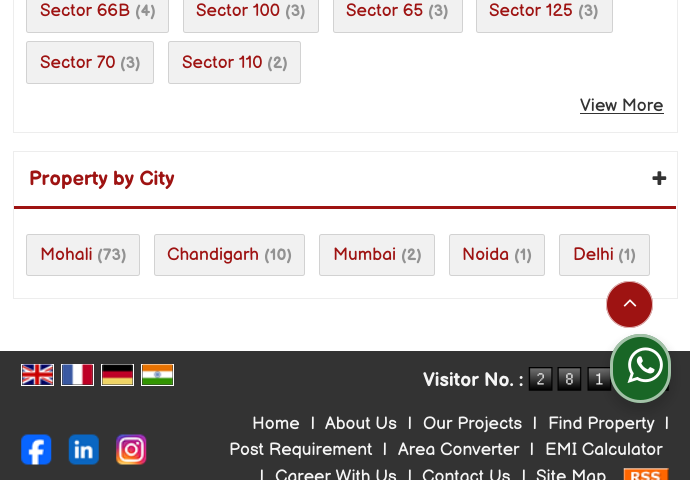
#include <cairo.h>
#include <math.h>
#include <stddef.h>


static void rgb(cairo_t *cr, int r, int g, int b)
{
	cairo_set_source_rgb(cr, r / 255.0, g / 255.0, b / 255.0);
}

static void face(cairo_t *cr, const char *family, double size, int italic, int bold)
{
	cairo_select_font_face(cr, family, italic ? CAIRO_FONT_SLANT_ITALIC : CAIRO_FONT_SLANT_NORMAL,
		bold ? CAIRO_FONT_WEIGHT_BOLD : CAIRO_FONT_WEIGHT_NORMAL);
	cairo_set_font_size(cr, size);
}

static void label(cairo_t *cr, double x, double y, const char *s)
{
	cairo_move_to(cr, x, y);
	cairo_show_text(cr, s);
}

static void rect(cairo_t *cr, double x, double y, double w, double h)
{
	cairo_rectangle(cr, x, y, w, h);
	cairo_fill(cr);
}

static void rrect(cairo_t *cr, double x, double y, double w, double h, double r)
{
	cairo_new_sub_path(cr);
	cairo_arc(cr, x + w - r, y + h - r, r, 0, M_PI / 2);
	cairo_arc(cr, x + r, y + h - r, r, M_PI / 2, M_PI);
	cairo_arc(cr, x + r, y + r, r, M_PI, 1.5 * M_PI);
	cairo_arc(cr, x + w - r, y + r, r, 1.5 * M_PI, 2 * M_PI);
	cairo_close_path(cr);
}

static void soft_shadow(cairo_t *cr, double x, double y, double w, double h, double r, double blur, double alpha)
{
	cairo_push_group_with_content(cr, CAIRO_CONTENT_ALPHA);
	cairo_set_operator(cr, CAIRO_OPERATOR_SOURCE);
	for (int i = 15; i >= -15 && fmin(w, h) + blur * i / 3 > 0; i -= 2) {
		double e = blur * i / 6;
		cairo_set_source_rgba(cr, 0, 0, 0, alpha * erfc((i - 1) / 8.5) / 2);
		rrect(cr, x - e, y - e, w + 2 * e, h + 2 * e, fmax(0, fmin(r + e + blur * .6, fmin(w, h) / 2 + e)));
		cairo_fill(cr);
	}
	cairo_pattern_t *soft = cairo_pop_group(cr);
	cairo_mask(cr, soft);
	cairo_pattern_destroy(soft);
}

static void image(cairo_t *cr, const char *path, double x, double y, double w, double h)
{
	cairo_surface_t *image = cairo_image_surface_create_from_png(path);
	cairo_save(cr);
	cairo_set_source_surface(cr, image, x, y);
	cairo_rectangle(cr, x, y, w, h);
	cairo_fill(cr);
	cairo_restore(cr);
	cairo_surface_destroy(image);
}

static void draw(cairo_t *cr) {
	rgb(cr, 255, 255, 255);
	cairo_paint(cr);
	cairo_rectangle(cr, 13.5, -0.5, 664, 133);
	rgb(cr, 237, 237, 237);
	cairo_set_line_width(cr, 1);
	cairo_stroke(cr);
	rgb(cr, 241, 241, 241);
	rrect(cr, 26, -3, 143, 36, 2.5);
	cairo_fill(cr);
	rrect(cr, 26.5, -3.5, 142, 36, 2);
	cairo_set_source_rgba(cr, 0, 0, 0, 0.13);
	cairo_stroke(cr);
	face(cr, "Balsamiq Sans", 17.5, 0, 0);
	rgb(cr, 158, 19, 18);
	label(cr, 40, 16, "Sector 66B");
	face(cr, "Balsamiq Sans", 16, 0, 1);
	rgb(cr, 146, 146, 146);
	label(cr, 135, 16, "(4)");
	rgb(cr, 241, 241, 241);
	rrect(cr, 183, -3, 136, 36, 2.5);
	cairo_fill(cr);
	rrect(cr, 183.5, -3.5, 135, 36, 2);
	cairo_set_source_rgba(cr, 0, 0, 0, 0.13);
	cairo_stroke(cr);
	face(cr, "Balsamiq Sans", 17.5, 0, 0);
	rgb(cr, 158, 19, 18);
	label(cr, 196, 16, "Sector 100");
	face(cr, "Balsamiq Sans", 16, 0, 1);
	rgb(cr, 146, 146, 146);
	label(cr, 285, 16, "(3)");
	rgb(cr, 241, 241, 241);
	rrect(cr, 333, -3, 130, 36, 2.5);
	cairo_fill(cr);
	rrect(cr, 333.5, -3.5, 129, 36, 2);
	cairo_set_source_rgba(cr, 0, 0, 0, 0.13);
	cairo_stroke(cr);
	face(cr, "Balsamiq Sans", 17.5, 0, 0);
	rgb(cr, 158, 19, 18);
	label(cr, 346, 16, "Sector 65");
	face(cr, "Balsamiq Sans", 16, 0, 1);
	rgb(cr, 146, 146, 146);
	label(cr, 428, 16, "(3)");
	rgb(cr, 241, 241, 241);
	rrect(cr, 476, -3, 137, 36, 2.5);
	cairo_fill(cr);
	rrect(cr, 476.5, -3.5, 136, 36, 2);
	cairo_set_source_rgba(cr, 0, 0, 0, 0.13);
	cairo_stroke(cr);
	face(cr, "Balsamiq Sans", 17.5, 0, 0);
	rgb(cr, 158, 19, 18);
	label(cr, 489, 16, "Sector 125");
	face(cr, "Balsamiq Sans", 16, 0, 1);
	rgb(cr, 146, 146, 146);
	label(cr, 578, 16, "(3)");
	rgb(cr, 241, 241, 241);
	rrect(cr, 26, 41, 128, 43, 2.5);
	cairo_fill(cr);
	rrect(cr, 26.5, 41.5, 127, 42, 2);
	cairo_set_source_rgba(cr, 0, 0, 0, 0.13);
	cairo_stroke(cr);
	face(cr, "Balsamiq Sans", 17.5, 0, 0);
	rgb(cr, 158, 19, 18);
	label(cr, 40, 68, "Sector 70");
	face(cr, "Balsamiq Sans", 16, 0, 1);
	rgb(cr, 146, 146, 146);
	label(cr, 120, 68, "(3)");
	rgb(cr, 241, 241, 241);
	rrect(cr, 168, 41, 133, 43, 2.5);
	cairo_fill(cr);
	rrect(cr, 168.5, 41.5, 132, 42, 2);
	cairo_set_source_rgba(cr, 0, 0, 0, 0.13);
	cairo_stroke(cr);
	face(cr, "Balsamiq Sans", 17.5, 0, 0);
	rgb(cr, 158, 19, 18);
	label(cr, 182, 68, "Sector 110");
	face(cr, "Balsamiq Sans", 16, 0, 1);
	rgb(cr, 146, 146, 146);
	label(cr, 267, 68, "(2)");
	face(cr, "Balsamiq Sans", 17.5, 0, 0);
	rgb(cr, 51, 51, 51);
	label(cr, 580, 111, "View More");
	rect(cr, 580, 113, 84, 1);
	cairo_rectangle(cr, 13.5, 151.5, 664, 147);
	rgb(cr, 237, 237, 237);
	cairo_stroke(cr);
	rgb(cr, 158, 19, 18);
	rect(cr, 14, 206, 662, 3);
	face(cr, "Balsamiq Sans", 20, 0, 1);
	label(cr, 29, 185, "Property by City");
	image(cr, "image0.png", 652, 171, 15, 14);
	rgb(cr, 241, 241, 241);
	rrect(cr, 26, 234, 114, 42, 2.5);
	cairo_fill(cr);
	rrect(cr, 26.5, 234.5, 113, 41, 2);
	cairo_set_source_rgba(cr, 0, 0, 0, 0.13);
	cairo_stroke(cr);
	face(cr, "Balsamiq Sans", 17.5, 0, 0);
	rgb(cr, 158, 19, 18);
	label(cr, 40, 260, "Mohali");
	face(cr, "Balsamiq Sans", 16, 0, 1);
	rgb(cr, 146, 146, 146);
	label(cr, 97, 260, "(73)");
	rgb(cr, 241, 241, 241);
	rrect(cr, 154, 234, 151, 42, 2.5);
	cairo_fill(cr);
	rrect(cr, 154.5, 234.5, 150, 41, 2);
	cairo_set_source_rgba(cr, 0, 0, 0, 0.13);
	cairo_stroke(cr);
	face(cr, "Balsamiq Sans", 17.5, 0, 0);
	rgb(cr, 158, 19, 18);
	label(cr, 167, 260, "Chandigarh");
	face(cr, "Balsamiq Sans", 16, 0, 1);
	rgb(cr, 146, 146, 146);
	label(cr, 264, 260, "(10)");
	rgb(cr, 241, 241, 241);
	rrect(cr, 319, 234, 116, 42, 2.5);
	cairo_fill(cr);
	rrect(cr, 319.5, 234.5, 115, 41, 2);
	cairo_set_source_rgba(cr, 0, 0, 0, 0.13);
	cairo_stroke(cr);
	face(cr, "Balsamiq Sans", 17.5, 0, 0);
	rgb(cr, 158, 19, 18);
	label(cr, 333, 260, "Mumbai");
	face(cr, "Balsamiq Sans", 16, 0, 1);
	rgb(cr, 146, 146, 146);
	label(cr, 401, 260, "(2)");
	rgb(cr, 241, 241, 241);
	rrect(cr, 449, 234, 96, 42, 2.5);
	cairo_fill(cr);
	rrect(cr, 449.5, 234.5, 95, 41, 2);
	cairo_set_source_rgba(cr, 0, 0, 0, 0.13);
	cairo_stroke(cr);
	face(cr, "Balsamiq Sans", 17.5, 0, 0);
	rgb(cr, 158, 19, 18);
	label(cr, 462, 260, "Noida");
	face(cr, "Balsamiq Sans", 16, 0, 1);
	rgb(cr, 146, 146, 146);
	label(cr, 514, 260, "(1)");
	rgb(cr, 241, 241, 241);
	rrect(cr, 559, 234, 91, 42, 2.5);
	cairo_fill(cr);
	rrect(cr, 559.5, 234.5, 90, 41, 2);
	cairo_set_source_rgba(cr, 0, 0, 0, 0.13);
	cairo_stroke(cr);
	face(cr, "Balsamiq Sans", 17.5, 0, 0);
	rgb(cr, 158, 19, 18);
	label(cr, 573, 260, "Delhi");
	face(cr, "Balsamiq Sans", 16, 0, 1);
	rgb(cr, 146, 146, 146);
	label(cr, 618, 260, "(1)");
	rgb(cr, 51, 51, 51);
	rect(cr, 0, 351, 690, 129);
	cairo_rectangle(cr, 21.5, 364.5, 32, 21);
	rgb(cr, 255, 255, 255);
	cairo_stroke(cr);
	image(cr, "image1.png", 22, 364, 31, 21);
	cairo_rectangle(cr, 61.5, 364.5, 32, 21);
	cairo_stroke(cr);
	image(cr, "image2.png", 62, 364, 31, 21);
	cairo_rectangle(cr, 101.5, 364.5, 32, 21);
	cairo_stroke(cr);
	image(cr, "image3.png", 102, 364, 31, 21);
	cairo_rectangle(cr, 141.5, 364.5, 32, 21);
	cairo_stroke(cr);
	image(cr, "image4.png", 142, 364, 31, 21);
	face(cr, "Balsamiq Sans", 19.25, 0, 1);
	rgb(cr, 245, 245, 245);
	label(cr, 423, 386, "Visitor No. :");
	image(cr, "image5.png", 528, 367, 25, 24);
	image(cr, "image6.png", 557, 367, 25, 24);
	image(cr, "image7.png", 587, 367, 25, 24);
	image(cr, "image8.png", 616, 390, 1, 1);
	image(cr, "image9.png", 664, 383, 5, 8);
	image(cr, "image10.png", 21, 434, 31, 31);
	image(cr, "image11.png", 68, 434, 31, 31);
	image(cr, "image12.png", 116, 434, 31, 31);
	face(cr, "Balsamiq Sans", 17.5, 0, 0);
	label(cr, 252, 429, "Home");
	label(cr, 311, 429, "|");
	label(cr, 325, 429, "About Us");
	label(cr, 408, 429, "|");
	label(cr, 423, 429, "Our Projects");
	label(cr, 533, 429, "|");
	label(cr, 548, 429, "Find Property");
	label(cr, 665, 429, "|");
	label(cr, 229, 455, "Post Requirement");
	label(cr, 383, 455, "|");
	label(cr, 398, 455, "Area Converter");
	label(cr, 530, 455, "|");
	label(cr, 545, 455, "EMI Calculator");
	label(cr, 260, 482, "|");
	label(cr, 275, 482, "Career With Us");
	label(cr, 408, 482, "|");
	label(cr, 422, 482, "Contact Us");
	label(cr, 522, 482, "|");
	label(cr, 536, 482, "Site Map");
	image(cr, "image13.png", 623, 468, 46, 12);
	rgb(cr, 158, 19, 18);
	cairo_arc(cr, 629.5, 304.5, 23.5, 0, 2 * M_PI);
	cairo_fill(cr);
	cairo_arc(cr, 629.5, 304.5, 23, 0, 2 * M_PI);
	cairo_set_source_rgba(cr, 1, 1, 1, 0.7);
	cairo_stroke(cr);
	image(cr, "image14.png", 623, 299, 14, 8);
	rgb(cr, 0, 0, 0);
	soft_shadow(cr, 608, 339, 66, 74, 33, 5, 0.14);
	rgb(cr, 25, 102, 38);
	rrect(cr, 610, 334, 61, 69, 30.5);
	cairo_fill(cr);
	rrect(cr, 611.5, 335.5, 58, 66, 29);
	cairo_set_source_rgba(cr, 1, 1, 1, 0.6);
	cairo_set_line_width(cr, 3);
	cairo_stroke(cr);
	image(cr, "image15.png", 627, 347, 36, 36);
}

int main(void) {
	cairo_surface_t *surface = cairo_image_surface_create(CAIRO_FORMAT_RGB24, 690, 480);
	cairo_t *cr = cairo_create(surface);
	cairo_font_options_t *options = cairo_font_options_create();
	cairo_font_options_set_hint_metrics(options, CAIRO_HINT_METRICS_OFF);
	cairo_font_options_set_hint_style(options, CAIRO_HINT_STYLE_NONE);
	cairo_set_font_options(cr, options);
	cairo_set_miter_limit(cr, 4);
	draw(cr);
	cairo_surface_write_to_png(surface, "render.png");
	cairo_font_options_destroy(options);
	cairo_destroy(cr);
	cairo_surface_destroy(surface);
	return 0;
}
